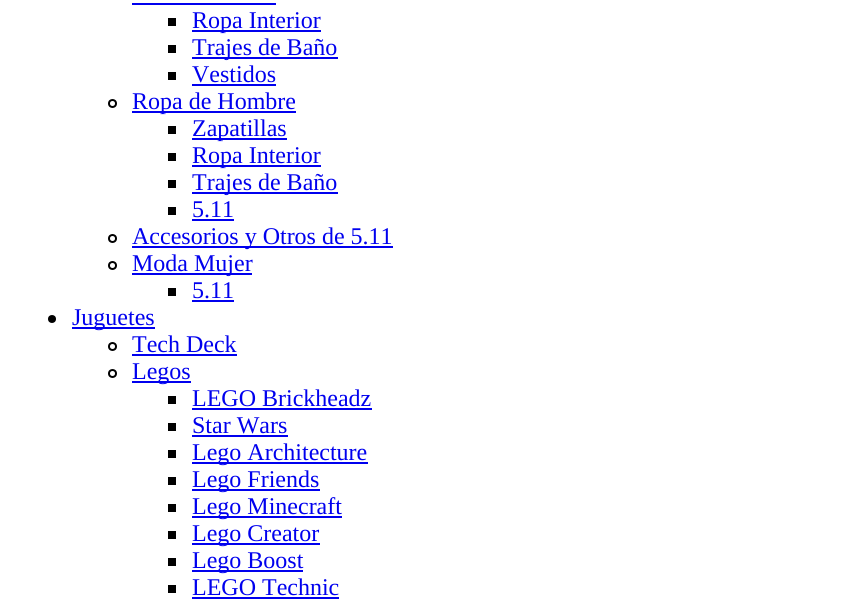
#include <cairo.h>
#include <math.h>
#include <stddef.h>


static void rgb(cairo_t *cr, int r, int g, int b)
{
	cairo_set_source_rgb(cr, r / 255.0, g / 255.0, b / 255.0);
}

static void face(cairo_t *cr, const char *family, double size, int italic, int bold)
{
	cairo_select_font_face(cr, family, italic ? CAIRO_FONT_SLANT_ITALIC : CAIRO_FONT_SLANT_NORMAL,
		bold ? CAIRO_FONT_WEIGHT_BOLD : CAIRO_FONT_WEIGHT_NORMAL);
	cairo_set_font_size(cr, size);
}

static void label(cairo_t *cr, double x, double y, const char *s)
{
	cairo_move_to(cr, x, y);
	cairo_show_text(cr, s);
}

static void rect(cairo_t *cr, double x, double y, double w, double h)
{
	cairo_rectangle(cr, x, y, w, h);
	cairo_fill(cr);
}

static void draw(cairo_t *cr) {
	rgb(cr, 255, 255, 255);
	cairo_paint(cr);
	rgb(cr, 0, 0, 238);
	rect(cr, 132, 3, 144, 2);
	rgb(cr, 0, 0, 0);
	rect(cr, 168, 18, 8, 8);
	rgb(cr, 0, 0, 238);
	rect(cr, 192, 30, 129, 2);
	face(cr, "Liberation Serif", 24, 0, 0);
	label(cr, 192, 28, "Ropa Interior");
	rgb(cr, 0, 0, 0);
	rect(cr, 168, 45, 8, 8);
	rgb(cr, 0, 0, 238);
	rect(cr, 192, 57, 146, 2);
	label(cr, 192, 55, "Trajes de Baño");
	rgb(cr, 0, 0, 0);
	rect(cr, 168, 72, 8, 8);
	rgb(cr, 0, 0, 238);
	label(cr, 192, 82, "Vestidos");
	rect(cr, 192, 84, 84, 2);
	cairo_new_path(cr);
	cairo_arc(cr, 112.5, 103.5, 3.5, 0, 2 * M_PI);
	rgb(cr, 0, 0, 0);
	cairo_stroke(cr);
	rgb(cr, 0, 0, 238);
	rect(cr, 132, 111, 164, 2);
	label(cr, 132, 109, "Ropa de Hombre");
	rgb(cr, 0, 0, 0);
	rect(cr, 168, 126, 8, 8);
	rgb(cr, 0, 0, 238);
	rect(cr, 192, 138, 95, 2);
	label(cr, 192, 136, "Zapatillas");
	rgb(cr, 0, 0, 0);
	rect(cr, 168, 153, 8, 8);
	rgb(cr, 0, 0, 238);
	rect(cr, 192, 165, 129, 2);
	label(cr, 192, 163, "Ropa Interior");
	rgb(cr, 0, 0, 0);
	rect(cr, 168, 180, 8, 8);
	rgb(cr, 0, 0, 238);
	rect(cr, 192, 192, 146, 2);
	label(cr, 192, 190, "Trajes de Baño");
	rgb(cr, 0, 0, 0);
	rect(cr, 168, 207, 8, 8);
	rgb(cr, 0, 0, 238);
	label(cr, 192, 217, "5.11");
	rect(cr, 192, 219, 42, 2);
	cairo_new_path(cr);
	cairo_arc(cr, 112.5, 238.5, 3.5, 0, 2 * M_PI);
	rgb(cr, 0, 0, 0);
	cairo_stroke(cr);
	rgb(cr, 0, 0, 238);
	rect(cr, 132, 246, 261, 2);
	label(cr, 132, 244, "Accesorios y Otros de 5.11");
	cairo_new_path(cr);
	cairo_arc(cr, 112.5, 265.5, 3.5, 0, 2 * M_PI);
	rgb(cr, 0, 0, 0);
	cairo_stroke(cr);
	rgb(cr, 0, 0, 238);
	rect(cr, 132, 273, 120, 2);
	label(cr, 132, 271, "Moda Mujer");
	rgb(cr, 0, 0, 0);
	rect(cr, 168, 288, 8, 8);
	rgb(cr, 0, 0, 238);
	label(cr, 192, 298, "5.11");
	rect(cr, 192, 300, 42, 2);
	rgb(cr, 0, 0, 0);
	cairo_new_path(cr);
	cairo_arc(cr, 52, 319, 4, 0, 2 * M_PI);
	cairo_fill(cr);
	rgb(cr, 0, 0, 238);
	rect(cr, 72, 327, 83, 2);
	label(cr, 72, 325, "Juguetes");
	cairo_new_path(cr);
	cairo_arc(cr, 112.5, 346.5, 3.5, 0, 2 * M_PI);
	rgb(cr, 0, 0, 0);
	cairo_stroke(cr);
	rgb(cr, 0, 0, 238);
	label(cr, 132, 352, "Tech Deck");
	rect(cr, 132, 354, 105, 2);
	cairo_new_path(cr);
	cairo_arc(cr, 112.5, 373.5, 3.5, 0, 2 * M_PI);
	rgb(cr, 0, 0, 0);
	cairo_stroke(cr);
	rgb(cr, 0, 0, 238);
	rect(cr, 132, 381, 59, 2);
	label(cr, 132, 379, "Legos");
	rgb(cr, 0, 0, 0);
	rect(cr, 168, 396, 8, 8);
	rgb(cr, 0, 0, 238);
	label(cr, 192, 406, "LEGO Brickheadz");
	rect(cr, 192, 408, 180, 2);
	rgb(cr, 0, 0, 0);
	rect(cr, 168, 423, 8, 8);
	rgb(cr, 0, 0, 238);
	label(cr, 192, 433, "Star Wars");
	rect(cr, 192, 435, 96, 2);
	rgb(cr, 0, 0, 0);
	rect(cr, 168, 450, 8, 8);
	rgb(cr, 0, 0, 238);
	rect(cr, 192, 462, 176, 2);
	label(cr, 192, 460, "Lego Architecture");
	rgb(cr, 0, 0, 0);
	rect(cr, 168, 477, 8, 8);
	rgb(cr, 0, 0, 238);
	rect(cr, 192, 489, 128, 2);
	label(cr, 192, 487, "Lego Friends");
	rgb(cr, 0, 0, 0);
	rect(cr, 168, 504, 8, 8);
	rgb(cr, 0, 0, 238);
	rect(cr, 192, 516, 150, 2);
	label(cr, 192, 514, "Lego Minecraft");
	rgb(cr, 0, 0, 0);
	rect(cr, 168, 531, 8, 8);
	rgb(cr, 0, 0, 238);
	rect(cr, 192, 543, 128, 2);
	label(cr, 192, 541, "Lego Creator");
	rgb(cr, 0, 0, 0);
	rect(cr, 168, 558, 8, 8);
	rgb(cr, 0, 0, 238);
	rect(cr, 192, 570, 111, 2);
	label(cr, 192, 568, "Lego Boost");
	rgb(cr, 0, 0, 0);
	rect(cr, 168, 585, 8, 8);
	rgb(cr, 0, 0, 238);
	label(cr, 192, 595, "LEGO Technic");
	rect(cr, 192, 597, 147, 2);
}

int main(void) {
	cairo_surface_t *surface = cairo_image_surface_create(CAIRO_FORMAT_RGB24, 868, 609);
	cairo_t *cr = cairo_create(surface);
	cairo_font_options_t *options = cairo_font_options_create();
	cairo_font_options_set_hint_metrics(options, CAIRO_HINT_METRICS_OFF);
	cairo_font_options_set_hint_style(options, CAIRO_HINT_STYLE_NONE);
	cairo_set_font_options(cr, options);
	cairo_set_miter_limit(cr, 4);
	draw(cr);
	cairo_surface_write_to_png(surface, "render.png");
	cairo_font_options_destroy(options);
	cairo_destroy(cr);
	cairo_surface_destroy(surface);
	return 0;
}
